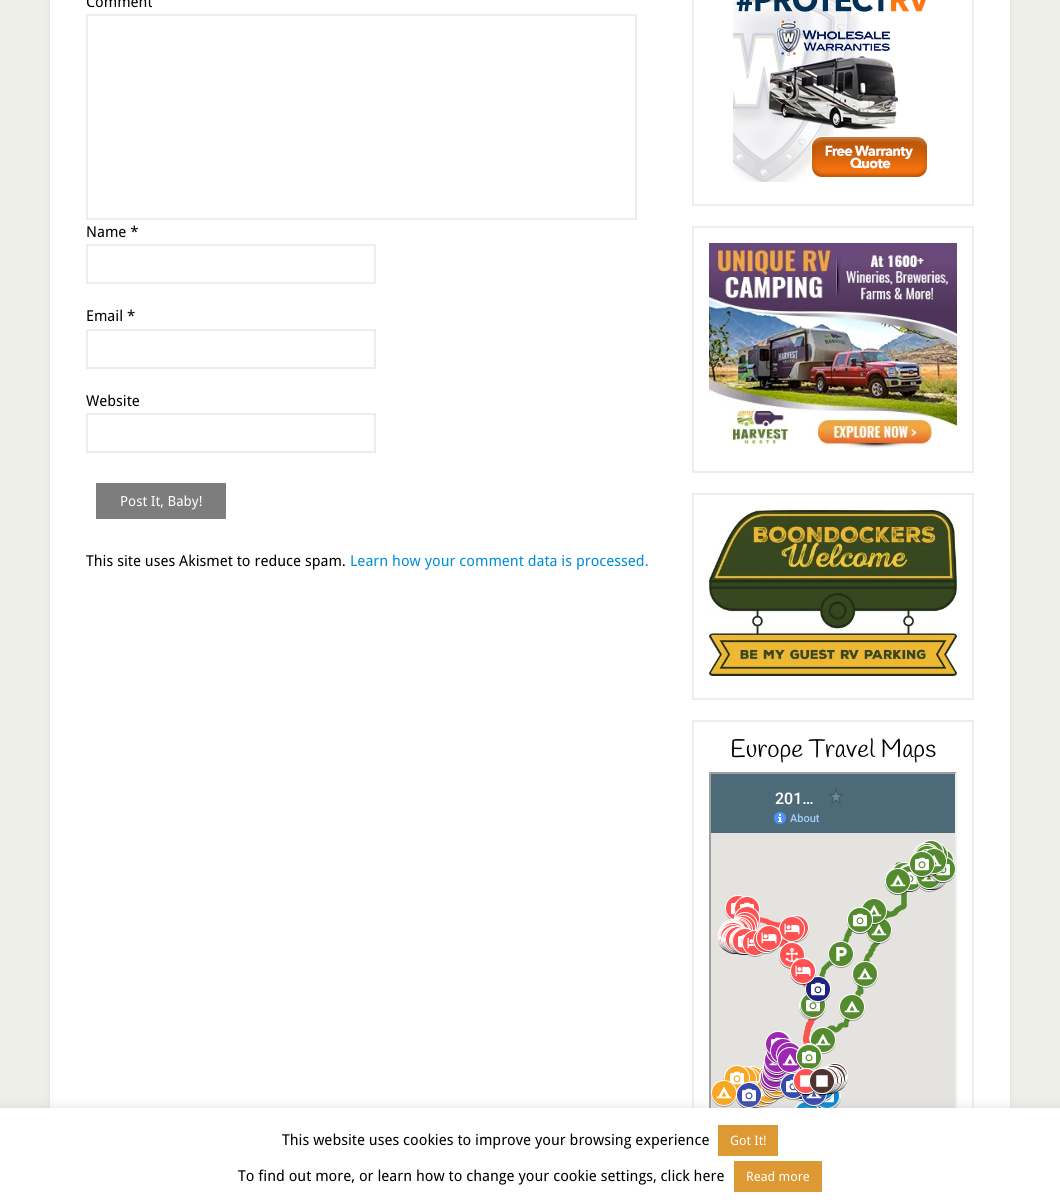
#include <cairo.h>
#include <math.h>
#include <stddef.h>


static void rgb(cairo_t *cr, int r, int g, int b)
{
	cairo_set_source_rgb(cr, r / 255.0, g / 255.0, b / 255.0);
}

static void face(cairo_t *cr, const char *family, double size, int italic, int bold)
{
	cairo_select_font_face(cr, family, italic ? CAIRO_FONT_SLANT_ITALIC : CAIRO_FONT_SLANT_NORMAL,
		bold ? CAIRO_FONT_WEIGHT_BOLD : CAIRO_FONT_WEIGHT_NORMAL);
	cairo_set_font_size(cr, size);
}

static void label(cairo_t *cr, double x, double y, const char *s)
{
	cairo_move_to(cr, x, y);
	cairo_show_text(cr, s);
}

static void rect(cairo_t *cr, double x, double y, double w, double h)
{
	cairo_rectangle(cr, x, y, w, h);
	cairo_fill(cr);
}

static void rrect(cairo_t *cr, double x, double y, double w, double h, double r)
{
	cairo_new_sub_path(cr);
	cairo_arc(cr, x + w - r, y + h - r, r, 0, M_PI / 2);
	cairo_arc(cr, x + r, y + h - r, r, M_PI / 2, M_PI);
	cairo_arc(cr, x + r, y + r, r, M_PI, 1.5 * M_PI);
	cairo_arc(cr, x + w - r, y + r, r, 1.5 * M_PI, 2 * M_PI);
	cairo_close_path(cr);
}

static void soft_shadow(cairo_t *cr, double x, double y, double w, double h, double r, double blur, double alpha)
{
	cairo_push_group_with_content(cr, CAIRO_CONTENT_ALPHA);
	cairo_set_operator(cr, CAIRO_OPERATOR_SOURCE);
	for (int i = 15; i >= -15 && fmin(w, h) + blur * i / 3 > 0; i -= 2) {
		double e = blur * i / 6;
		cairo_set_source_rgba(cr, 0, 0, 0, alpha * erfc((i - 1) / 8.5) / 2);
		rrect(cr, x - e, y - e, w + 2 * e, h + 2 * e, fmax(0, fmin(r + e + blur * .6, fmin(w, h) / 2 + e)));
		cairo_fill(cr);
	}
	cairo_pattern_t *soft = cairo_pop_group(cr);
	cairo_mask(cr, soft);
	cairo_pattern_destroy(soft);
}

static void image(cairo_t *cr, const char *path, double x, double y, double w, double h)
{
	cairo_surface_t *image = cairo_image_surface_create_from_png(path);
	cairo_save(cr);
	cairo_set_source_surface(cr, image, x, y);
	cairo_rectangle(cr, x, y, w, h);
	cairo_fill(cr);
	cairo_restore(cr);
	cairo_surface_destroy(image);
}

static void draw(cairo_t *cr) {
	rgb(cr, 239, 239, 233);
	cairo_paint(cr);
	rgb(cr, 221, 221, 221);
	soft_shadow(cr, 50, -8, 960, 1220, 0, 2.5, 1);
	rgb(cr, 255, 255, 255);
	rect(cr, 50, 0, 960, 1108);
	face(cr, "Droid Sans", 15, 0, 0);
	rgb(cr, 0, 0, 0);
	label(cr, 86, 7, "Comment");
	cairo_rectangle(cr, 87, 15, 549, 204);
	rgb(cr, 238, 238, 232);
	cairo_stroke(cr);
	rgb(cr, 0, 0, 0);
	label(cr, 86, 237, "Name *");
	cairo_rectangle(cr, 87, 245, 288, 38);
	rgb(cr, 238, 238, 232);
	cairo_stroke(cr);
	rgb(cr, 0, 0, 0);
	label(cr, 86, 321, "Email *");
	cairo_rectangle(cr, 87, 330, 288, 38);
	rgb(cr, 238, 238, 232);
	cairo_stroke(cr);
	rgb(cr, 0, 0, 0);
	label(cr, 86, 406, "Website");
	cairo_rectangle(cr, 87, 414, 288, 38);
	rgb(cr, 238, 238, 232);
	cairo_stroke(cr);
	rgb(cr, 125, 125, 125);
	rect(cr, 96, 483, 130, 36);
	face(cr, "Droid Sans", 14, 0, 0);
	rgb(cr, 255, 255, 255);
	label(cr, 120, 506, "Post It, Baby!");
	face(cr, "Droid Sans", 15, 0, 0);
	rgb(cr, 0, 0, 0);
	label(cr, 86, 566, "This site uses Akismet to reduce spam.");
	rgb(cr, 0, 142, 214);
	label(cr, 350, 566, "Learn how your comment data is processed.");
	cairo_rectangle(cr, 693, -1, 280, 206);
	rgb(cr, 238, 238, 232);
	cairo_stroke(cr);
	image(cr, "image0.png", 733, 0, 194, 182);
	cairo_rectangle(cr, 693, 227, 280, 245);
	cairo_stroke(cr);
	image(cr, "image1.png", 709, 243, 248, 205);
	cairo_rectangle(cr, 693, 494, 280, 205);
	cairo_stroke(cr);
	image(cr, "image2.png", 709, 510, 248, 166);
	cairo_rectangle(cr, 693, 721, 280, 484);
	cairo_stroke(cr);
	face(cr, "Handlee", 25, 0, 0);
	rgb(cr, 0, 0, 0);
	label(cr, 730, 757, "Europe Travel Maps");
	rgb(cr, 159, 159, 159);
	cairo_new_path(cr);
	cairo_move_to(cr, 709, 772);
	cairo_line_to(cr, 957, 772);
	cairo_line_to(cr, 955, 774);
	cairo_line_to(cr, 711, 774);
	cairo_close_path(cr);
	cairo_fill(cr);
	cairo_new_path(cr);
	cairo_move_to(cr, 709, 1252);
	cairo_line_to(cr, 709, 772);
	cairo_line_to(cr, 711, 774);
	cairo_line_to(cr, 711, 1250);
	cairo_close_path(cr);
	cairo_fill(cr);
	image(cr, "image3.png", 711, 774, 244, 334);
	rgb(cr, 238, 238, 238);
	cairo_new_path(cr);
	cairo_move_to(cr, 957, 772);
	cairo_line_to(cr, 957, 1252);
	cairo_line_to(cr, 955, 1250);
	cairo_line_to(cr, 955, 774);
	cairo_close_path(cr);
	cairo_fill(cr);
	rgb(cr, 172, 171, 171);
	soft_shadow(cr, 0, 1107, 1060, 96, 0, 5, 0.3);
	rgb(cr, 255, 255, 255);
	rect(cr, 0, 1108, 1060, 96);
	face(cr, "Droid Sans", 15, 0, 0);
	rgb(cr, 0, 0, 0);
	label(cr, 282, 1145, "This website uses cookies to improve your browsing experience");
	rgb(cr, 221, 153, 51);
	rect(cr, 718, 1125, 60, 31);
	face(cr, "Droid Sans", 13, 0, 0);
	rgb(cr, 255, 255, 255);
	label(cr, 730, 1145, "Got It!");
	face(cr, "Droid Sans", 15, 0, 0);
	rgb(cr, 0, 0, 0);
	label(cr, 238, 1181, "To find out more, or learn how to change your cookie settings, click here");
	rgb(cr, 221, 153, 51);
	rect(cr, 734, 1161, 88, 31);
	face(cr, "Droid Sans", 13, 0, 0);
	rgb(cr, 255, 255, 255);
	label(cr, 746, 1181, "Read more");
}

int main(void) {
	cairo_surface_t *surface = cairo_image_surface_create(CAIRO_FORMAT_RGB24, 1060, 1204);
	cairo_t *cr = cairo_create(surface);
	cairo_font_options_t *options = cairo_font_options_create();
	cairo_font_options_set_hint_metrics(options, CAIRO_HINT_METRICS_OFF);
	cairo_font_options_set_hint_style(options, CAIRO_HINT_STYLE_NONE);
	cairo_set_font_options(cr, options);
	cairo_set_miter_limit(cr, 4);
	draw(cr);
	cairo_surface_write_to_png(surface, "render.png");
	cairo_font_options_destroy(options);
	cairo_destroy(cr);
	cairo_surface_destroy(surface);
	return 0;
}
